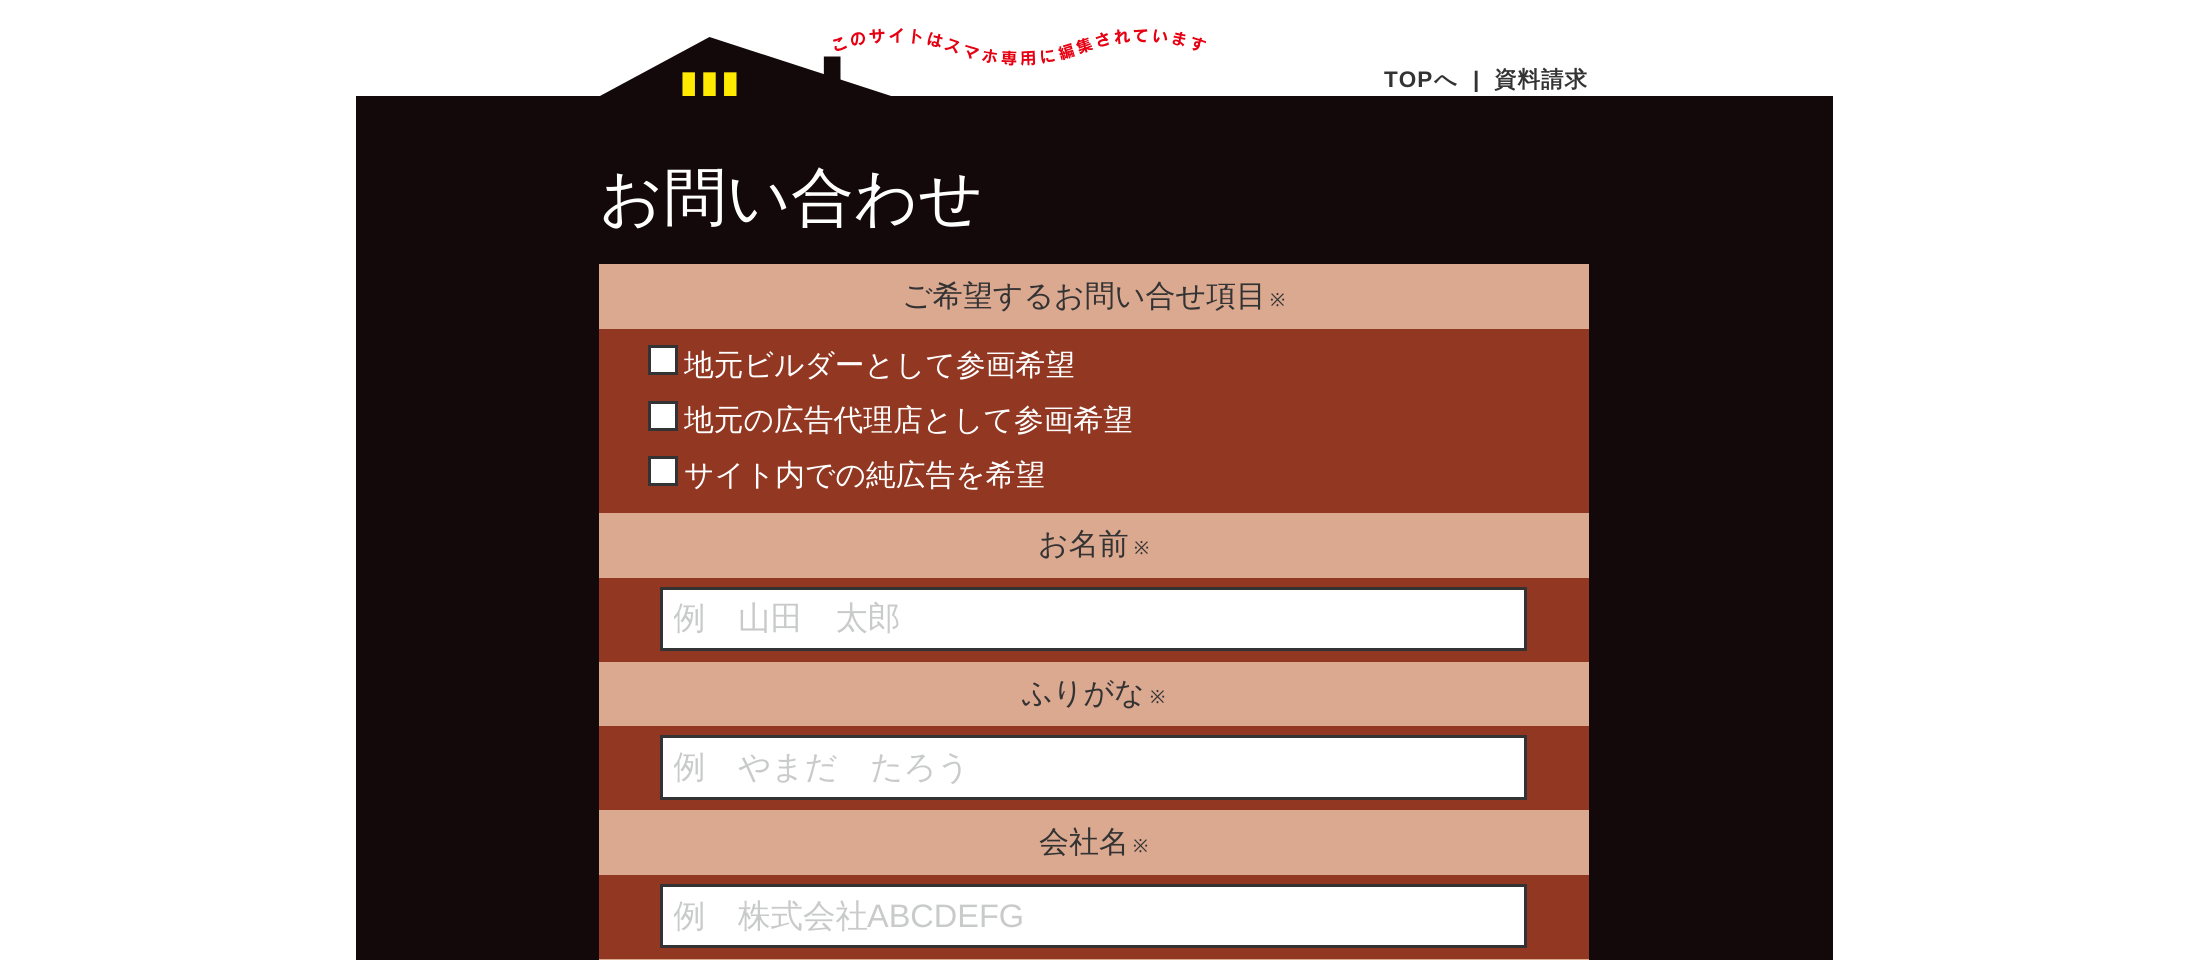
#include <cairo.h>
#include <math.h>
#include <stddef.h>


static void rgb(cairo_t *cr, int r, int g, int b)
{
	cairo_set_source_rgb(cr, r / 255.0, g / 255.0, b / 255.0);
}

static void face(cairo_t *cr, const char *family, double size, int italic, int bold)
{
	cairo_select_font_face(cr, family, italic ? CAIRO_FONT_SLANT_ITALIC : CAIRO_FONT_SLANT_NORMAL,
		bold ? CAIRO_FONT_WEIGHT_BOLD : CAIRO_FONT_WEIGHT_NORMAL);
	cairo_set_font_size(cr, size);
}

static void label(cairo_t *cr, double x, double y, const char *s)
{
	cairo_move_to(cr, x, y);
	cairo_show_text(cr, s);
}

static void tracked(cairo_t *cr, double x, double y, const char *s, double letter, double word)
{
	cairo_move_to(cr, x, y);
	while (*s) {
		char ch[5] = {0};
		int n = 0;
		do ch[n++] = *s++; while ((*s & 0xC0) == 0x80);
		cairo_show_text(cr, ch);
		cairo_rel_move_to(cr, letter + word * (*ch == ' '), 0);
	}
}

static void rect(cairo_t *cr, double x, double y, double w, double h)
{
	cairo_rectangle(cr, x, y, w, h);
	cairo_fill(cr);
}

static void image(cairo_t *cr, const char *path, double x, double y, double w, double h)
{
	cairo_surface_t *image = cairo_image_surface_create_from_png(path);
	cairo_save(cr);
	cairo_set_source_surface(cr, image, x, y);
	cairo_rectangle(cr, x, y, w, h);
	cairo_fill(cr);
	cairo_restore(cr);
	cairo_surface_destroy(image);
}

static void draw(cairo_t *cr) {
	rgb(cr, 255, 255, 255);
	cairo_paint(cr);
	image(cr, "image0.png", 600, 28, 606, 68);
	face(cr, "Liberation Sans", 22.5, 0, 1);
	rgb(cr, 51, 51, 51);
	tracked(cr, 1384, 87, "TOP", 1, 0);
	face(cr, "WenQuanYi Zen Hei", 22.5, 0, 1);
	tracked(cr, 1434, 87, "へ", 1, 0);
	face(cr, "Liberation Sans", 22.5, 0, 1);
	tracked(cr, 1473, 87, "|", 1, 0);
	face(cr, "WenQuanYi Zen Hei", 22.5, 0, 1);
	tracked(cr, 1494, 87, "資料請求", 1, 0);
	rgb(cr, 19, 9, 11);
	rect(cr, 356, 96, 1477, 864);
	face(cr, "WenQuanYi Zen Hei Medium", 63, 0, 0);
	rgb(cr, 255, 255, 255);
	label(cr, 599, 219, "お問い合わせ");
	rgb(cr, 145, 55, 34);
	rect(cr, 599, 329, 990, 630);
	rgb(cr, 219, 168, 144);
	rect(cr, 599, 264, 990, 65);
	face(cr, "WenQuanYi Zen Hei Medium", 30, 0, 0);
	rgb(cr, 51, 51, 51);
	label(cr, 902, 306, "ご希望するお問い合せ項目");
	face(cr, "Noto Sans", 18, 0, 0);
	label(cr, 1270, 306, "※");
	rgb(cr, 255, 255, 255);
	cairo_rectangle(cr, 649.5, 346.5, 27, 27);
	cairo_fill_preserve(cr);
	rgb(cr, 51, 51, 51);
	cairo_set_line_width(cr, 3);
	cairo_stroke(cr);
	face(cr, "WenQuanYi Zen Hei Medium", 29.75, 0, 0);
	rgb(cr, 255, 255, 255);
	label(cr, 684, 375, "地元ビルダーとして参画希望");
	cairo_rectangle(cr, 649.5, 402.5, 27, 27);
	cairo_fill_preserve(cr);
	rgb(cr, 51, 51, 51);
	cairo_stroke(cr);
	rgb(cr, 255, 255, 255);
	label(cr, 684, 430, "地元の広告代理店として参画希望");
	cairo_rectangle(cr, 649.5, 457.5, 27, 27);
	cairo_fill_preserve(cr);
	rgb(cr, 51, 51, 51);
	cairo_stroke(cr);
	rgb(cr, 255, 255, 255);
	label(cr, 684, 485, "サイト内での純広告を希望");
	rgb(cr, 219, 168, 144);
	rect(cr, 599, 513, 990, 65);
	face(cr, "WenQuanYi Zen Hei Medium", 30, 0, 0);
	rgb(cr, 51, 51, 51);
	label(cr, 1038, 554, "お名前");
	face(cr, "Noto Sans", 18, 0, 0);
	label(cr, 1134, 554, "※");
	rgb(cr, 255, 255, 255);
	cairo_rectangle(cr, 661.5, 588.5, 864, 61);
	cairo_fill_preserve(cr);
	rgb(cr, 51, 51, 51);
	cairo_stroke(cr);
	cairo_save(cr);
	cairo_rectangle(cr, 674, 597, 841, 44);
	cairo_clip(cr);
	face(cr, "WenQuanYi Zen Hei Medium", 32.5, 0, 0);
	rgb(cr, 201, 202, 202);
	label(cr, 673, 629, "例　山田　太郎");
	cairo_restore(cr);
	rgb(cr, 219, 168, 144);
	rect(cr, 599, 662, 990, 64);
	face(cr, "WenQuanYi Zen Hei Medium", 30, 0, 0);
	rgb(cr, 51, 51, 51);
	label(cr, 1022, 703, "ふりがな");
	face(cr, "Noto Sans", 18, 0, 0);
	label(cr, 1150, 703, "※");
	rgb(cr, 255, 255, 255);
	cairo_rectangle(cr, 661.5, 736.5, 864, 62);
	cairo_fill_preserve(cr);
	rgb(cr, 51, 51, 51);
	cairo_stroke(cr);
	cairo_save(cr);
	cairo_rectangle(cr, 674, 746, 841, 43);
	cairo_clip(cr);
	face(cr, "WenQuanYi Zen Hei Medium", 32.5, 0, 0);
	rgb(cr, 201, 202, 202);
	label(cr, 673, 778, "例　やまだ　たろう");
	cairo_restore(cr);
	rgb(cr, 219, 168, 144);
	rect(cr, 599, 810, 990, 65);
	face(cr, "WenQuanYi Zen Hei Medium", 30, 0, 0);
	rgb(cr, 51, 51, 51);
	label(cr, 1039, 852, "会社名");
	face(cr, "Noto Sans", 18, 0, 0);
	label(cr, 1133, 852, "※");
	rgb(cr, 255, 255, 255);
	cairo_rectangle(cr, 661.5, 885.5, 864, 61);
	cairo_fill_preserve(cr);
	rgb(cr, 51, 51, 51);
	cairo_stroke(cr);
	cairo_save(cr);
	cairo_rectangle(cr, 674, 894, 841, 44);
	cairo_clip(cr);
	face(cr, "WenQuanYi Zen Hei Medium", 32.5, 0, 0);
	rgb(cr, 201, 202, 202);
	label(cr, 673, 927, "例　株式会社");
	cairo_restore(cr);
	face(cr, "Liberation Sans", 32.5, 0, 0);
	rgb(cr, 201, 202, 202);
	label(cr, 867, 927, "ABCDEFG");
	rgb(cr, 219, 168, 144);
	rect(cr, 599, 959, 990, 1);
}

int main(void) {
	cairo_surface_t *surface = cairo_image_surface_create(CAIRO_FORMAT_RGB24, 2187, 960);
	cairo_t *cr = cairo_create(surface);
	cairo_font_options_t *options = cairo_font_options_create();
	cairo_font_options_set_hint_metrics(options, CAIRO_HINT_METRICS_OFF);
	cairo_font_options_set_hint_style(options, CAIRO_HINT_STYLE_NONE);
	cairo_set_font_options(cr, options);
	cairo_set_miter_limit(cr, 4);
	draw(cr);
	cairo_surface_write_to_png(surface, "render.png");
	cairo_font_options_destroy(options);
	cairo_destroy(cr);
	cairo_surface_destroy(surface);
	return 0;
}
